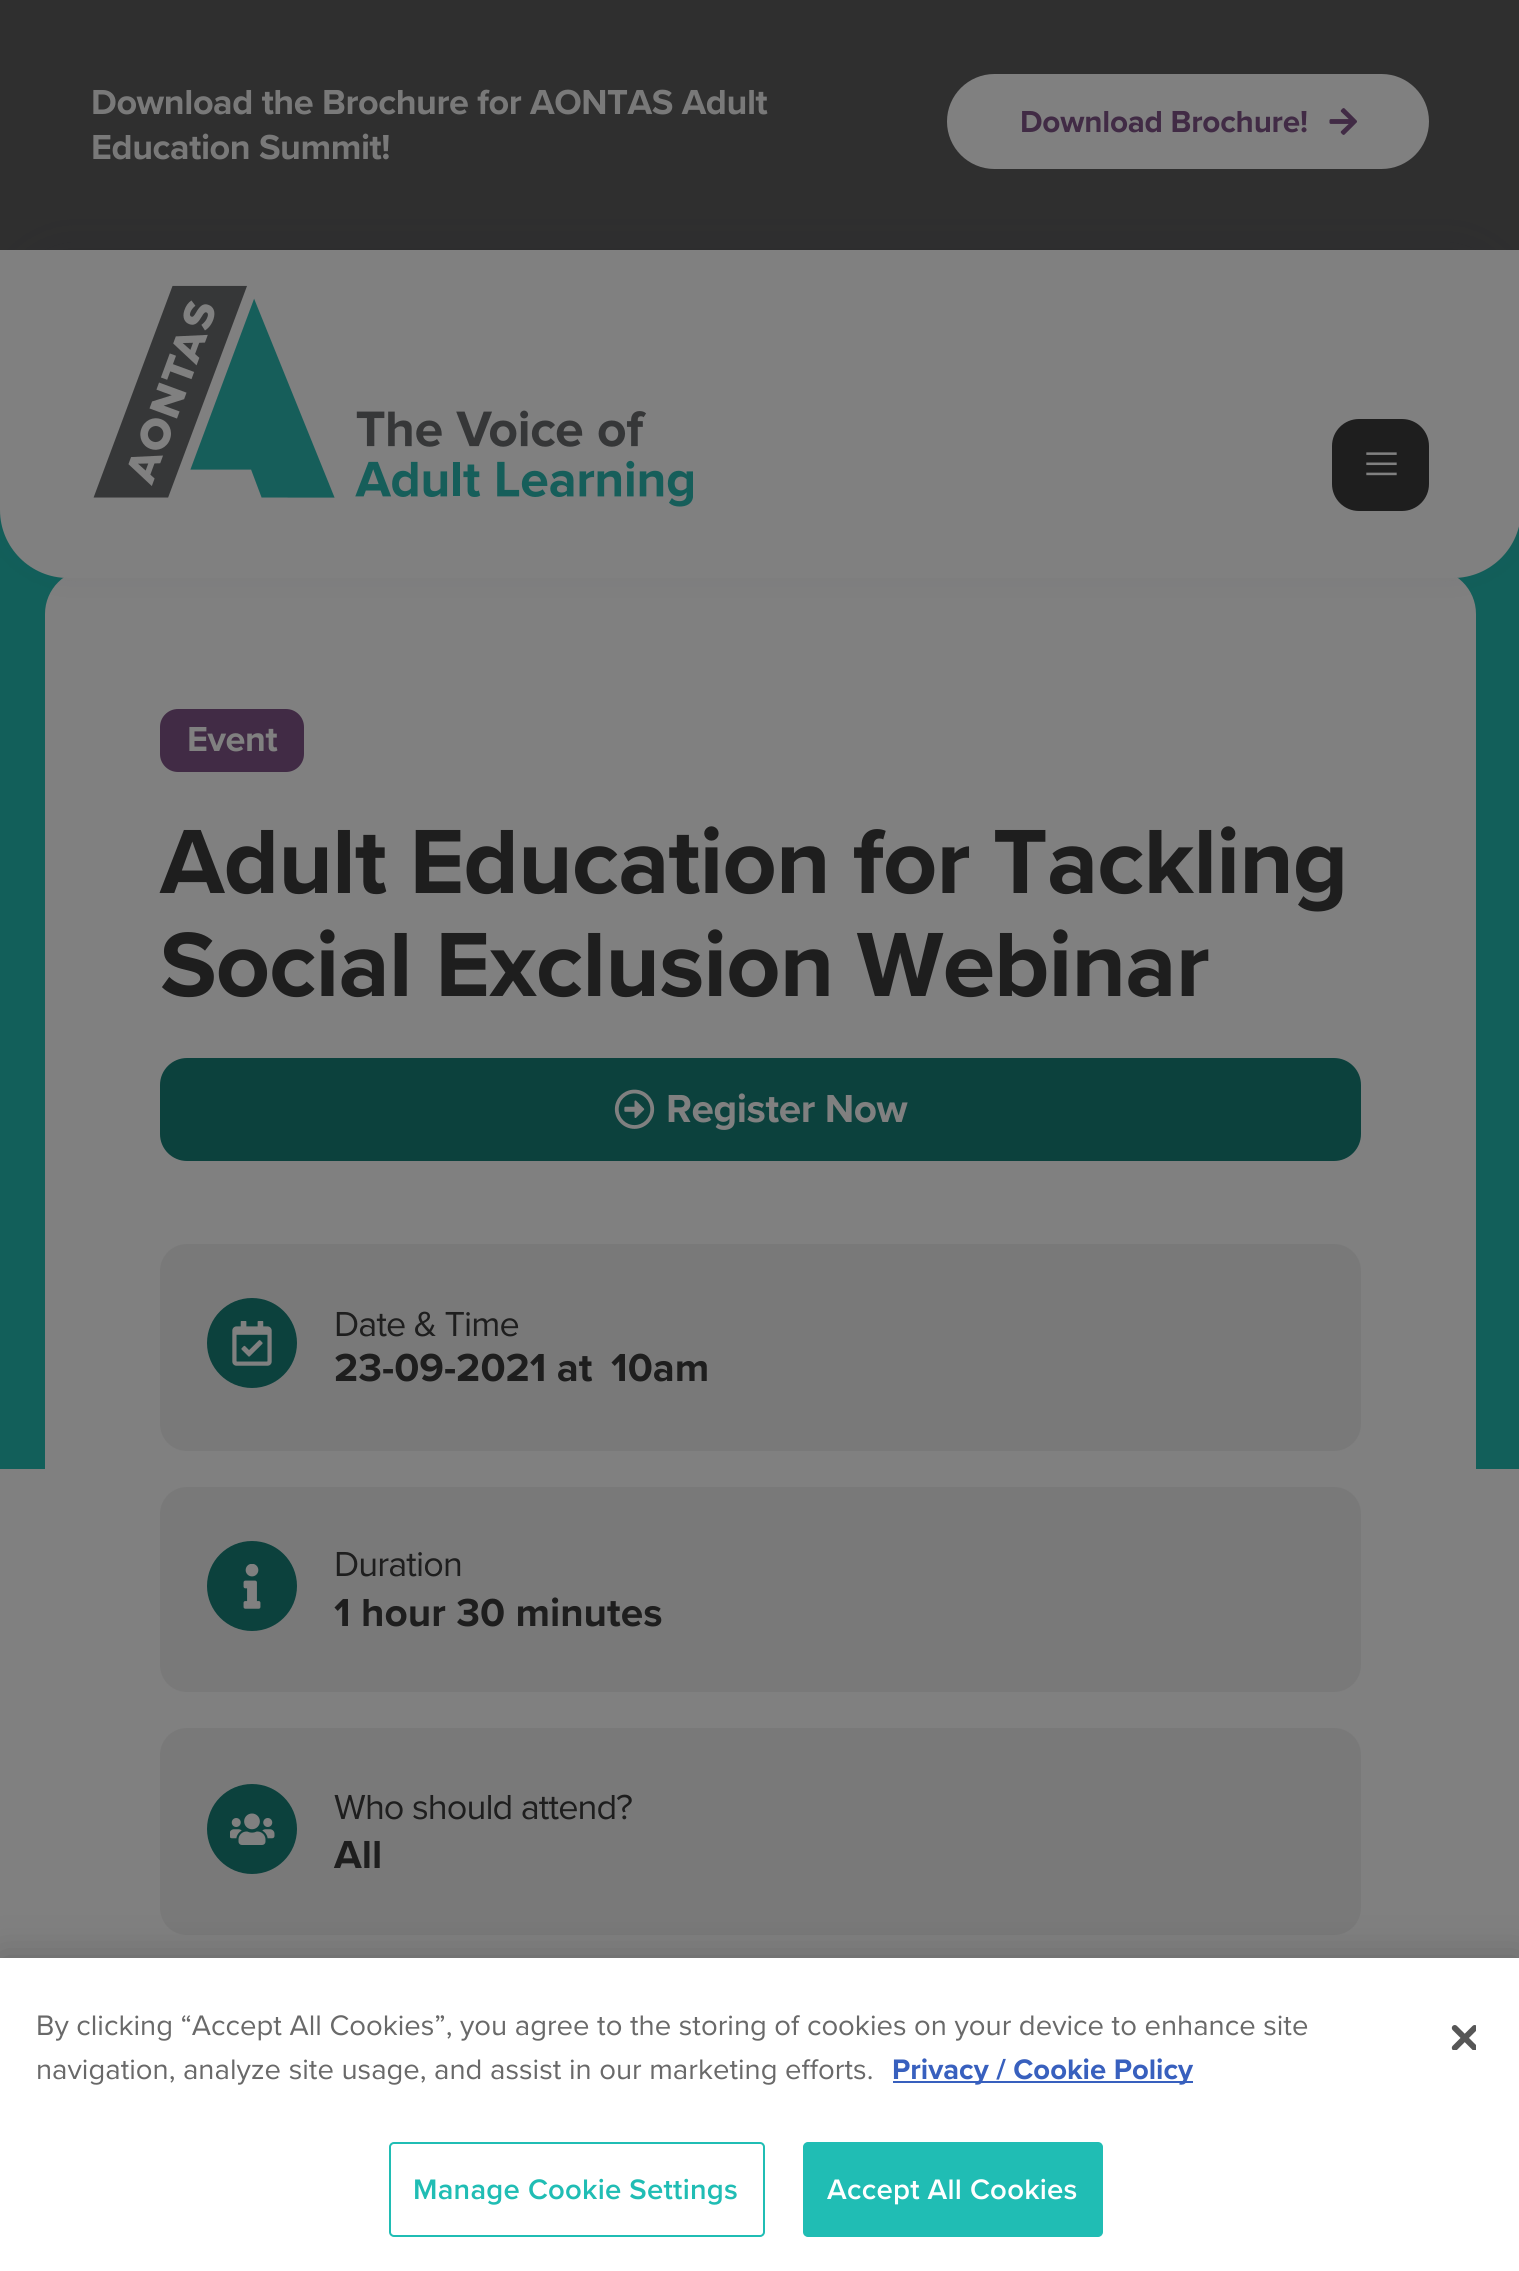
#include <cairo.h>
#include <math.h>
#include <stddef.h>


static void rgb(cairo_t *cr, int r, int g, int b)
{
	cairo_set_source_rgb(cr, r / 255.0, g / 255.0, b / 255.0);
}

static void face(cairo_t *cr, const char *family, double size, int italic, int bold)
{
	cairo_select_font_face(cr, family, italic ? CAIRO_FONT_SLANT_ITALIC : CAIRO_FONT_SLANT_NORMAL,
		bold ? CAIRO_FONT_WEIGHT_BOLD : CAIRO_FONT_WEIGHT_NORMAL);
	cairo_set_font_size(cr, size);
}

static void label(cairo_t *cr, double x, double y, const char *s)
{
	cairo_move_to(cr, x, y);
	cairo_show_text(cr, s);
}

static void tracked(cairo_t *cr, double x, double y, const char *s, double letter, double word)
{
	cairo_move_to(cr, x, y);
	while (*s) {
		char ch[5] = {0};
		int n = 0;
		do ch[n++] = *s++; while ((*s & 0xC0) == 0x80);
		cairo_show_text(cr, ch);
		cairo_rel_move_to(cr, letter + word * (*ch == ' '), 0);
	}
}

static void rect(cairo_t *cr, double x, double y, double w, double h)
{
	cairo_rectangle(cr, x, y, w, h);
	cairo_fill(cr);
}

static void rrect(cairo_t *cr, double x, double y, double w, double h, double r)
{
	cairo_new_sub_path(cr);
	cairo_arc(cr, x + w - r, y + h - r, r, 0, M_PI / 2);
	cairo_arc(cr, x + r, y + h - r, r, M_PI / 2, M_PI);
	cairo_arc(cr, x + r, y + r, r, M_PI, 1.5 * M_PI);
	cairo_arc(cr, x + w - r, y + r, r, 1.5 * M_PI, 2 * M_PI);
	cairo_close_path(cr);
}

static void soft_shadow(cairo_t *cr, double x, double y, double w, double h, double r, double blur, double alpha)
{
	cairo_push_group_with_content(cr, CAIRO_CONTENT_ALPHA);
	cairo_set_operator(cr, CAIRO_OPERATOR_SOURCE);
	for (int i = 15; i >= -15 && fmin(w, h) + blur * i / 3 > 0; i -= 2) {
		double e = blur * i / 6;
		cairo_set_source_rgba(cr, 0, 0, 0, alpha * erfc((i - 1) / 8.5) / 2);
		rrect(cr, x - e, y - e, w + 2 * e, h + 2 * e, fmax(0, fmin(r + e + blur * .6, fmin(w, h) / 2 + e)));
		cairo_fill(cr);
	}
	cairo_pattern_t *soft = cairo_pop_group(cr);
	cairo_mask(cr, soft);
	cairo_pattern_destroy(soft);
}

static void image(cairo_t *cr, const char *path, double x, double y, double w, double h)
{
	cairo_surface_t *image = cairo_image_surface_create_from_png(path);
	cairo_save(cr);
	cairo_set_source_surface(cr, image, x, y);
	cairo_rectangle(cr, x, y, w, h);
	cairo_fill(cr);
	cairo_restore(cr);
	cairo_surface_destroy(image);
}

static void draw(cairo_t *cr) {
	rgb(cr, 128, 128, 128);
	cairo_paint(cr);
	rgb(cr, 47, 47, 47);
	rect(cr, 0, 0, 1519, 250);
	face(cr, "Proxima Nova", 36, 0, 1);
	rgb(cr, 121, 121, 121);
	tracked(cr, 91, 114, "Download the Brochure for AONTAS Adult", -0.45, 0);
	tracked(cr, 91, 159, "Education Summit!", -0.45, 0);
	rgb(cr, 128, 128, 128);
	rrect(cr, 947, 74, 482, 95, 47.5);
	cairo_fill(cr);
	face(cr, "Proxima Nova", 31.5, 0, 1);
	rgb(cr, 65, 43, 69);
	tracked(cr, 1020, 132, "Download Brochure!", -0.25, 0);
	image(cr, "image0.png", 1329, 108, 28, 27);
	rgb(cr, 18, 95, 90);
	rect(cr, 0, 510, 1519, 959);
	rgb(cr, 128, 128, 128);
	rrect(cr, 45, 569, 1431, 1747, 45);
	cairo_fill(cr);
	rgb(cr, 24, 25, 43);
	soft_shadow(cr, 0, 239, 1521, 328, 68, 17, 0.1);
	rgb(cr, 128, 128, 128);
	cairo_new_path(cr);
	cairo_move_to(cr, 0, 250);
	cairo_line_to(cr, 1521, 250);
	cairo_line_to(cr, 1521, 510);
	cairo_curve_to(cr, 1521, 547.5, 1490.5, 578, 1453, 578);
	cairo_line_to(cr, 68, 578);
	cairo_curve_to(cr, 30.5, 578, 0, 547.5, 0, 510);
	cairo_close_path(cr);
	cairo_fill(cr);
	image(cr, "image1.png", 93, 285, 600, 222);
	rgb(cr, 30, 30, 30);
	rrect(cr, 1332, 419, 97, 92, 27);
	cairo_fill(cr);
	image(cr, "image2.png", 1366, 452, 31, 24);
	rgb(cr, 65, 43, 69);
	rrect(cr, 160, 709, 144, 63, 18);
	cairo_fill(cr);
	face(cr, "Proxima Nova", 36, 0, 1);
	rgb(cr, 128, 128, 128);
	tracked(cr, 187, 751, "Event", -0.45, 0);
	face(cr, "Proxima Nova", 94.5, 0, 1);
	rgb(cr, 30, 30, 30);
	tracked(cr, 160, 893, "Adult Education for Tackling", -0.9, 0);
	tracked(cr, 160, 996, "Social Exclusion Webinar", -0.9, 0);
	rgb(cr, 12, 65, 61);
	rrect(cr, 160, 1058, 1201, 103, 27);
	cairo_fill(cr);
	image(cr, "image3.png", 614, 1089, 41, 40);
	face(cr, "Proxima Nova", 40.5, 0, 1);
	rgb(cr, 128, 128, 128);
	tracked(cr, 666, 1122, "Register Now", -0.45, 0);
	rgb(cr, 121, 121, 121);
	rrect(cr, 160, 1244, 1201, 207, 27);
	cairo_fill(cr);
	rgb(cr, 12, 65, 61);
	cairo_arc(cr, 252, 1343, 45, 0, 2 * M_PI);
	cairo_fill(cr);
	image(cr, "image4.png", 232, 1321, 40, 45);
	face(cr, "Proxima Nova", 36, 0, 0);
	rgb(cr, 30, 30, 30);
	tracked(cr, 334, 1336, "Date & Time", -0.9, 0);
	face(cr, "Proxima Nova", 40.5, 0, 1);
	label(cr, 334, 1381, "23-09-2021 at");
	label(cr, 611, 1381, "10am");
	rgb(cr, 121, 121, 121);
	rrect(cr, 160, 1487, 1201, 205, 27);
	cairo_fill(cr);
	rgb(cr, 12, 65, 61);
	cairo_arc(cr, 252, 1586, 45, 0, 2 * M_PI);
	cairo_fill(cr);
	image(cr, "image5.png", 243, 1564, 18, 45);
	face(cr, "Proxima Nova", 36, 0, 0);
	rgb(cr, 30, 30, 30);
	tracked(cr, 334, 1576, "Duration", -0.9, 0);
	face(cr, "Proxima Nova", 40.5, 0, 1);
	label(cr, 334, 1626, "1 hour 30 minutes");
	rgb(cr, 121, 121, 121);
	rrect(cr, 160, 1728, 1201, 207, 27);
	cairo_fill(cr);
	rgb(cr, 12, 65, 61);
	cairo_arc(cr, 252, 1829, 45, 0, 2 * M_PI);
	cairo_fill(cr);
	image(cr, "image6.png", 230, 1813, 45, 32);
	face(cr, "Proxima Nova", 36, 0, 0);
	rgb(cr, 30, 30, 30);
	tracked(cr, 334, 1819, "Who should attend?", -0.9, 0);
	face(cr, "Proxima Nova", 40.5, 0, 1);
	label(cr, 334, 1868, "All");
	rgb(cr, 0, 0, 0);
	soft_shadow(cr, 0, 1958, 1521, 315, 0, 20, 0.2);
	rgb(cr, 255, 255, 255);
	rect(cr, 0, 1958, 1519, 313);
	face(cr, "Proxima Nova", 29.25, 0, 0);
	rgb(cr, 105, 105, 105);
	label(cr, 36, 2035, "By clicking “Accept All Cookies”, you agree to the storing of cookies on your device to enhance site");
	label(cr, 36, 2079, "navigation, analyze site usage, and assist in our marketing efforts.");
	rgb(cr, 56, 96, 190);
	rect(cr, 893, 2081, 300, 2);
	face(cr, "Proxima Nova", 29.25, 0, 1);
	label(cr, 892, 2079, "Privacy / Cookie Policy");
	image(cr, "image7.png", 1451, 2025, 25, 25);
	rrect(cr, 390, 2143, 374, 93, 4);
	rgb(cr, 32, 189, 180);
	cairo_stroke(cr);
	face(cr, "Proxima Nova SemiBold", 29.25, 0, 0);
	tracked(cr, 413, 2199, "Manage Cookie Settings", 0.25, 0);
	rrect(cr, 804, 2143, 298, 93, 4);
	cairo_fill_preserve(cr);
	cairo_stroke(cr);
	rgb(cr, 255, 255, 255);
	tracked(cr, 827, 2199, "Accept All Cookies", 0.25, 0);
}

int main(void) {
	cairo_surface_t *surface = cairo_image_surface_create(CAIRO_FORMAT_RGB24, 1519, 2271);
	cairo_t *cr = cairo_create(surface);
	cairo_font_options_t *options = cairo_font_options_create();
	cairo_font_options_set_hint_metrics(options, CAIRO_HINT_METRICS_OFF);
	cairo_font_options_set_hint_style(options, CAIRO_HINT_STYLE_NONE);
	cairo_set_font_options(cr, options);
	cairo_set_miter_limit(cr, 4);
	draw(cr);
	cairo_surface_write_to_png(surface, "render.png");
	cairo_font_options_destroy(options);
	cairo_destroy(cr);
	cairo_surface_destroy(surface);
	return 0;
}
